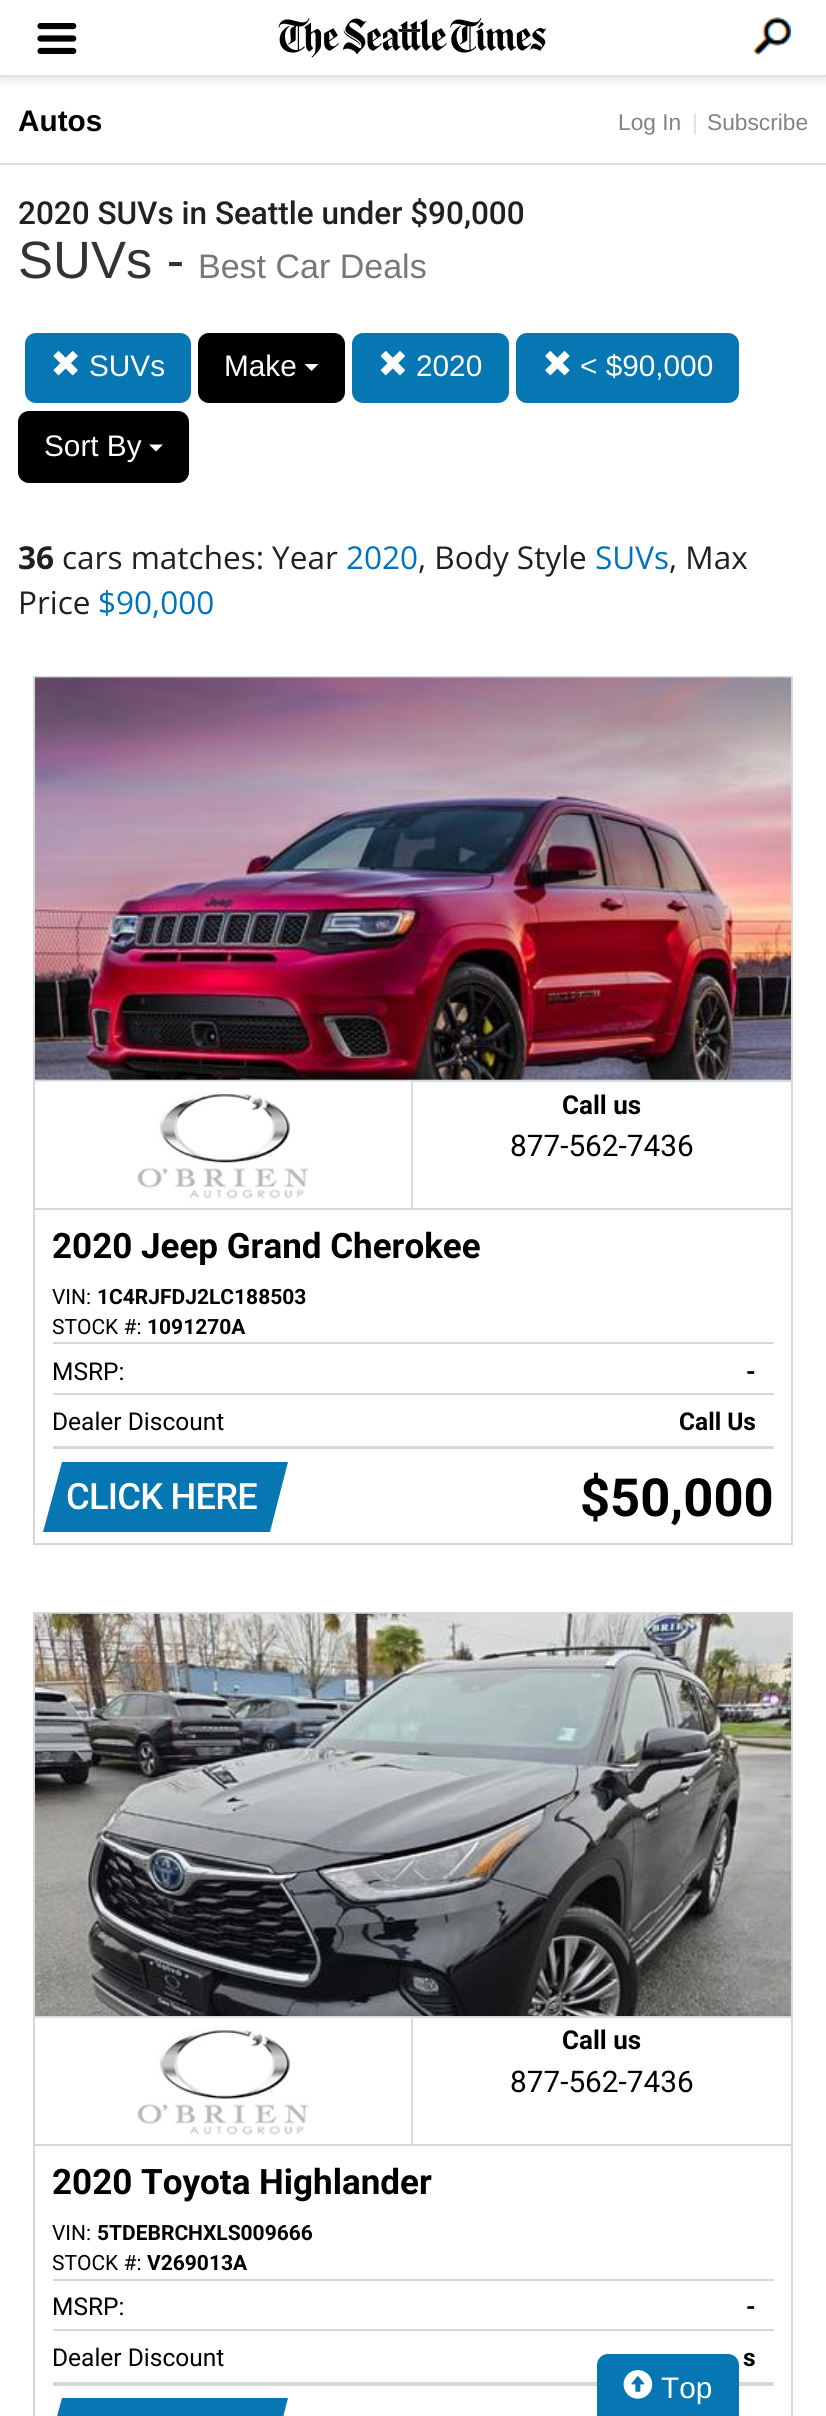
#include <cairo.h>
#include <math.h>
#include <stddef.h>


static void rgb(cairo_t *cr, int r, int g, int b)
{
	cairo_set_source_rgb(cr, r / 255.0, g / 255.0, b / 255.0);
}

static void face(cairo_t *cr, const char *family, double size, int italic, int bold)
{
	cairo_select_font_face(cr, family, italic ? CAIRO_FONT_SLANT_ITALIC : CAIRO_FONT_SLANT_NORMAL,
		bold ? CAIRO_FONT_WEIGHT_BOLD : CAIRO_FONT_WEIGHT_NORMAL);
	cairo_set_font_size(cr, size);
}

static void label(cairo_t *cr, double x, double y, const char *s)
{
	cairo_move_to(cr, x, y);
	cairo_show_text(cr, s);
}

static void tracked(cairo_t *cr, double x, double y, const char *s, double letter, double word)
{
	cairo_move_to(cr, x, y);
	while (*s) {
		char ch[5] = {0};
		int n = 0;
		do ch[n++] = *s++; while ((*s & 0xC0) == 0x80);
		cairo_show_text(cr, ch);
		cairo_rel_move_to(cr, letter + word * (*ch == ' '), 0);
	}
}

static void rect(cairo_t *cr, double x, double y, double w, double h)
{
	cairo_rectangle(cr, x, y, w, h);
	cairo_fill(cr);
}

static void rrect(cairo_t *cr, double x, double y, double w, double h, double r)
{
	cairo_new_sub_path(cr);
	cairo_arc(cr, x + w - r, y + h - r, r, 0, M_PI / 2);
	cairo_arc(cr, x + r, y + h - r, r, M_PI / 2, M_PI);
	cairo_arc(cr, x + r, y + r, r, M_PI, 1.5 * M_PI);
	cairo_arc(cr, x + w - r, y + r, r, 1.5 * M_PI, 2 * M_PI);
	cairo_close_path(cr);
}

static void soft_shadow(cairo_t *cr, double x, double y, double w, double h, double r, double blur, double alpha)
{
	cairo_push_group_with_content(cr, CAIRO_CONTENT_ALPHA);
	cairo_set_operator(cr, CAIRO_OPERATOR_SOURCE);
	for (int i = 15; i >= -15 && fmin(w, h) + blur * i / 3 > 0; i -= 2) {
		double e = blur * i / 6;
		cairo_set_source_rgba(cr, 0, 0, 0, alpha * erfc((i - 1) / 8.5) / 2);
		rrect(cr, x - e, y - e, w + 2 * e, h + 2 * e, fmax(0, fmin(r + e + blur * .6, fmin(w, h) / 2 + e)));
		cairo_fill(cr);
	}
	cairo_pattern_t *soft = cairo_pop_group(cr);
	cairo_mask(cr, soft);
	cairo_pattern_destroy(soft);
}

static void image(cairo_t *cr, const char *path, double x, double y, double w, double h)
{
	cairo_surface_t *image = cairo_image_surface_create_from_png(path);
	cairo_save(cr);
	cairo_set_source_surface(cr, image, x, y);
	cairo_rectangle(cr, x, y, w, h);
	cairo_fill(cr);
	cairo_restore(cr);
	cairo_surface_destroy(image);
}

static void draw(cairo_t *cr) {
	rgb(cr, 255, 255, 255);
	cairo_paint(cr);
	cairo_save(cr);
	cairo_rectangle(cr, 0, 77, 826, 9);
	cairo_clip(cr);
	rgb(cr, 0, 0, 0);
	soft_shadow(cr, 0, 4, 826, 77, 0, 6, 0.1);
	cairo_restore(cr);
	rgb(cr, 224, 224, 224);
	rect(cr, 0, 75, 826, 2);
	image(cr, "image0.png", 37, 23, 40, 31);
	image(cr, "image1.png", 278, 18, 269, 40);
	image(cr, "image2.png", 754, 17, 37, 38);
	rect(cr, 0, 163, 826, 2);
	face(cr, "Liberation Sans", 29.75, 0, 1);
	rgb(cr, 0, 0, 0);
	label(cr, 18, 131, "Autos");
	face(cr, "Liberation Sans", 22.75, 0, 0);
	rgb(cr, 126, 131, 139);
	label(cr, 618, 130, "Log In");
	rgb(cr, 224, 224, 224);
	label(cr, 692, 130, "|");
	rgb(cr, 126, 131, 139);
	label(cr, 707, 130, "Subscribe");
	face(cr, "Roboto Medium", 31.5, 0, 0);
	rgb(cr, 35, 31, 32);
	label(cr, 18, 224, "2020 SUVs in Seattle under $90,000");
	face(cr, "Liberation Sans", 52.5, 0, 0);
	rgb(cr, 51, 51, 51);
	label(cr, 18, 278, "SUVs -");
	face(cr, "Liberation Sans", 34, 0, 0);
	rgb(cr, 119, 119, 119);
	label(cr, 198, 278, "Best Car Deals");
	rgb(cr, 7, 119, 179);
	rrect(cr, 25, 333, 166, 70, 11);
	cairo_fill(cr);
	image(cr, "image3.png", 53, 351, 25, 25);
	face(cr, "Liberation Sans", 29.75, 0, 0);
	rgb(cr, 255, 255, 255);
	label(cr, 89, 376, "SUVs");
	rgb(cr, 0, 0, 0);
	rrect(cr, 198, 333, 147, 70, 11);
	cairo_fill(cr);
	rgb(cr, 255, 255, 255);
	label(cr, 224, 376, "Make");
	cairo_new_path(cr);
	cairo_move_to(cr, 304.5, 364);
	cairo_line_to(cr, 318.5, 364);
	cairo_line_to(cr, 311.5, 371);
	cairo_close_path(cr);
	cairo_fill(cr);
	rgb(cr, 7, 119, 179);
	rrect(cr, 352, 333, 157, 70, 11);
	cairo_fill(cr);
	image(cr, "image4.png", 380, 351, 25, 25);
	rgb(cr, 255, 255, 255);
	label(cr, 416, 376, "2020");
	rgb(cr, 7, 119, 179);
	rrect(cr, 516, 333, 223, 70, 11);
	cairo_fill(cr);
	image(cr, "image5.png", 545, 351, 25, 25);
	rgb(cr, 255, 255, 255);
	label(cr, 580, 376, "< $90,000");
	rgb(cr, 0, 0, 0);
	rrect(cr, 18, 411, 171, 72, 11);
	cairo_fill(cr);
	rgb(cr, 255, 255, 255);
	label(cr, 44, 456, "Sort By");
	cairo_new_path(cr);
	cairo_move_to(cr, 149, 444.5);
	cairo_line_to(cr, 163, 444.5);
	cairo_line_to(cr, 156, 451.5);
	cairo_close_path(cr);
	cairo_fill(cr);
	face(cr, "Open Sans", 31.5, 0, 1);
	rgb(cr, 35, 31, 32);
	label(cr, 18, 569, "36");
	face(cr, "Open Sans", 31.5, 0, 0);
	label(cr, 62, 569, "cars matches: Year");
	rgb(cr, 0, 115, 189);
	label(cr, 346, 569, "2020");
	rgb(cr, 35, 31, 32);
	label(cr, 418, 569, ", Body Style");
	rgb(cr, 0, 115, 189);
	label(cr, 595, 569, "SUVs");
	rgb(cr, 35, 31, 32);
	label(cr, 669, 569, ", Max");
	label(cr, 18, 614, "Price");
	rgb(cr, 0, 115, 189);
	label(cr, 98, 614, "$90,000");
	cairo_rectangle(cr, 34, 677, 758, 867);
	rgb(cr, 212, 216, 217);
	cairo_stroke(cr);
	image(cr, "image6.png", 35, 677, 756, 403);
	rect(cr, 35, 1080, 756, 2);
	rect(cr, 411, 1080, 2, 129);
	rect(cr, 35, 1208, 756, 2);
	image(cr, "image7.png", 35, 1081, 377, 127);
	face(cr, "Roboto", 26, 0, 1);
	rgb(cr, 0, 0, 0);
	label(cr, 562, 1114, "Call us");
	face(cr, "Roboto", 29.75, 0, 0);
	label(cr, 510, 1156, "877-562-7436");
	cairo_save(cr);
	cairo_rectangle(cr, 53, 1227, 428, 38);
	cairo_clip(cr);
	face(cr, "Roboto", 35, 0, 1);
	label(cr, 52, 1258, "2020 Jeep Grand Cherokee");
	cairo_restore(cr);
	face(cr, "Roboto", 21, 0, 0);
	label(cr, 52, 1304, "VIN:");
	face(cr, "Roboto", 21, 0, 1);
	label(cr, 97, 1304, "1C4RJFDJ2LC188503");
	face(cr, "Roboto", 21, 0, 0);
	label(cr, 52, 1334, "STOCK #:");
	face(cr, "Roboto", 21, 0, 1);
	label(cr, 147, 1334, "1091270A");
	rgb(cr, 212, 216, 217);
	rect(cr, 53, 1342, 721, 2);
	rect(cr, 53, 1393, 721, 2);
	face(cr, "Roboto", 24.5, 0, 0);
	rgb(cr, 0, 0, 0);
	label(cr, 52, 1380, "MSRP:");
	face(cr, "Roboto", 24.5, 0, 1);
	label(cr, 746, 1380, "-");
	rgb(cr, 212, 216, 217);
	rect(cr, 53, 1446, 721, 3);
	face(cr, "Roboto", 24.5, 0, 0);
	rgb(cr, 0, 0, 0);
	label(cr, 52, 1430, "Dealer Discount");
	face(cr, "Roboto", 24.5, 0, 1);
	label(cr, 679, 1430, "Call Us");
	rgb(cr, 7, 119, 179);
	cairo_new_path(cr);
	cairo_move_to(cr, 62, 1462);
	cairo_line_to(cr, 288, 1462);
	cairo_line_to(cr, 270, 1532);
	cairo_line_to(cr, 43, 1532);
	cairo_close_path(cr);
	cairo_fill(cr);
	face(cr, "Roboto Medium", 36.25, 0, 0);
	rgb(cr, 255, 255, 255);
	tracked(cr, 66, 1509, "CLICK HERE", -0.75, 0);
	face(cr, "Roboto", 52.5, 0, 1);
	rgb(cr, 0, 0, 0);
	label(cr, 580, 1516, "$50,000");
	cairo_rectangle(cr, 34, 1613, 758, 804);
	rgb(cr, 212, 216, 217);
	cairo_stroke(cr);
	image(cr, "image8.png", 35, 1613, 756, 403);
	rect(cr, 35, 2016, 756, 2);
	rect(cr, 411, 2016, 2, 130);
	rect(cr, 35, 2144, 756, 2);
	image(cr, "image9.png", 35, 2017, 377, 127);
	face(cr, "Roboto", 26, 0, 1);
	rgb(cr, 0, 0, 0);
	label(cr, 562, 2049, "Call us");
	face(cr, "Roboto", 29.75, 0, 0);
	label(cr, 510, 2092, "877-562-7436");
	face(cr, "Roboto", 35, 0, 1);
	label(cr, 52, 2194, "2020 Toyota Highlander");
	face(cr, "Roboto", 21, 0, 0);
	label(cr, 52, 2240, "VIN:");
	face(cr, "Roboto", 21, 0, 1);
	label(cr, 97, 2240, "5TDEBRCHXLS009666");
	face(cr, "Roboto", 21, 0, 0);
	label(cr, 52, 2270, "STOCK #:");
	face(cr, "Roboto", 21, 0, 1);
	label(cr, 147, 2270, "V269013A");
	rgb(cr, 212, 216, 217);
	rect(cr, 53, 2279, 721, 2);
	rect(cr, 53, 2329, 721, 2);
	face(cr, "Roboto", 24.5, 0, 0);
	rgb(cr, 0, 0, 0);
	label(cr, 52, 2315, "MSRP:");
	face(cr, "Roboto", 24.5, 0, 1);
	label(cr, 746, 2315, "-");
	rgb(cr, 212, 216, 217);
	rect(cr, 53, 2382, 721, 4);
	face(cr, "Roboto", 24.5, 0, 0);
	rgb(cr, 0, 0, 0);
	label(cr, 52, 2366, "Dealer Discount");
	face(cr, "Roboto", 24.5, 0, 1);
	label(cr, 743, 2366, "s");
	rgb(cr, 7, 119, 179);
	cairo_new_path(cr);
	cairo_move_to(cr, 62, 2398);
	cairo_line_to(cr, 288, 2398);
	cairo_line_to(cr, 270, 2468);
	cairo_line_to(cr, 43, 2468);
	cairo_close_path(cr);
	cairo_fill(cr);
	rrect(cr, 598, 2355, 140, 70, 10);
	cairo_fill_preserve(cr);
	cairo_stroke(cr);
	image(cr, "image10.png", 623, 2370, 30, 29);
	face(cr, "Liberation Sans", 29.75, 0, 0);
	rgb(cr, 255, 255, 255);
	label(cr, 661, 2398, "Top");
}

int main(void) {
	cairo_surface_t *surface = cairo_image_surface_create(CAIRO_FORMAT_RGB24, 826, 2416);
	cairo_t *cr = cairo_create(surface);
	cairo_font_options_t *options = cairo_font_options_create();
	cairo_font_options_set_hint_metrics(options, CAIRO_HINT_METRICS_OFF);
	cairo_font_options_set_hint_style(options, CAIRO_HINT_STYLE_NONE);
	cairo_set_font_options(cr, options);
	cairo_set_miter_limit(cr, 4);
	draw(cr);
	cairo_surface_write_to_png(surface, "render.png");
	cairo_font_options_destroy(options);
	cairo_destroy(cr);
	cairo_surface_destroy(surface);
	return 0;
}
